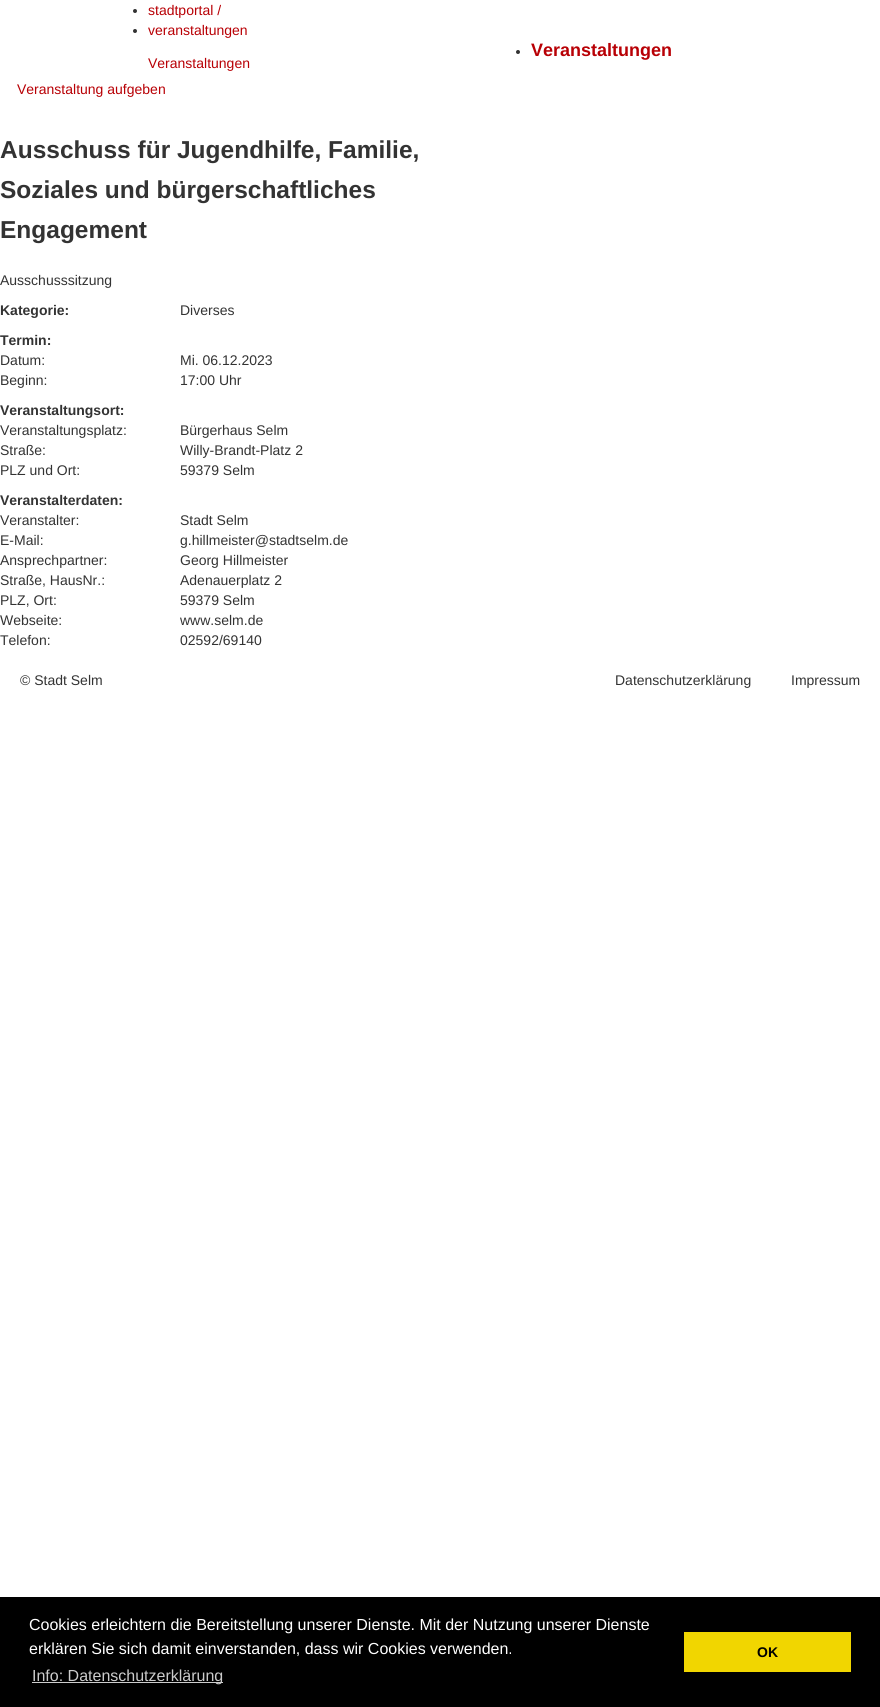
#include <cairo.h>
#include <math.h>
#include <stddef.h>


static void rgb(cairo_t *cr, int r, int g, int b)
{
	cairo_set_source_rgb(cr, r / 255.0, g / 255.0, b / 255.0);
}

static void face(cairo_t *cr, const char *family, double size, int italic, int bold)
{
	cairo_select_font_face(cr, family, italic ? CAIRO_FONT_SLANT_ITALIC : CAIRO_FONT_SLANT_NORMAL,
		bold ? CAIRO_FONT_WEIGHT_BOLD : CAIRO_FONT_WEIGHT_NORMAL);
	cairo_set_font_size(cr, size);
}

static void label(cairo_t *cr, double x, double y, const char *s)
{
	cairo_move_to(cr, x, y);
	cairo_show_text(cr, s);
}

static void rect(cairo_t *cr, double x, double y, double w, double h)
{
	cairo_rectangle(cr, x, y, w, h);
	cairo_fill(cr);
}

static void draw(cairo_t *cr) {
	rgb(cr, 255, 255, 255);
	cairo_paint(cr);
	rgb(cr, 51, 51, 51);
	cairo_arc(cr, 135, 11, 2, 0, 2 * M_PI);
	cairo_fill(cr);
	face(cr, "Liberation Sans", 14, 0, 0);
	rgb(cr, 184, 0, 5);
	label(cr, 148, 15, "stadtportal /");
	rgb(cr, 51, 51, 51);
	cairo_new_path(cr);
	cairo_arc(cr, 135, 31, 2, 0, 2 * M_PI);
	cairo_fill(cr);
	rgb(cr, 184, 0, 5);
	label(cr, 148, 35, "veranstaltungen");
	rgb(cr, 51, 51, 51);
	cairo_new_path(cr);
	cairo_arc(cr, 518, 52, 2, 0, 2 * M_PI);
	cairo_fill(cr);
	face(cr, "Liberation Sans", 18, 0, 1);
	rgb(cr, 184, 0, 5);
	label(cr, 531, 56, "Veranstaltungen");
	face(cr, "Liberation Sans", 14, 0, 0);
	label(cr, 148, 68, "Veranstaltungen");
	label(cr, 17, 94, "Veranstaltung aufgeben");
	face(cr, "Liberation Sans", 24.5, 0, 1);
	rgb(cr, 51, 51, 51);
	label(cr, 0, 158, "Ausschuss für Jugendhilfe, Familie,");
	label(cr, 0, 198, "Soziales und bürgerschaftliches");
	label(cr, 0, 238, "Engagement");
	face(cr, "Liberation Sans", 14, 0, 0);
	label(cr, 0, 285, "Ausschusssitzung");
	face(cr, "Liberation Sans", 14, 0, 1);
	label(cr, 0, 315, "Kategorie:");
	face(cr, "Liberation Sans", 14, 0, 0);
	label(cr, 180, 315, "Diverses");
	face(cr, "Liberation Sans", 14, 0, 1);
	label(cr, 0, 345, "Termin:");
	face(cr, "Liberation Sans", 14, 0, 0);
	label(cr, 0, 365, "Datum:");
	label(cr, 180, 365, "Mi. 06.12.2023");
	label(cr, 0, 385, "Beginn:");
	label(cr, 180, 385, "17:00 Uhr");
	face(cr, "Liberation Sans", 14, 0, 1);
	label(cr, 0, 415, "Veranstaltungsort:");
	face(cr, "Liberation Sans", 14, 0, 0);
	label(cr, 0, 435, "Veranstaltungsplatz:");
	label(cr, 180, 435, "Bürgerhaus Selm");
	label(cr, 0, 455, "Straße:");
	label(cr, 180, 455, "Willy-Brandt-Platz 2");
	label(cr, 0, 475, "PLZ und Ort:");
	label(cr, 180, 475, "59379 Selm");
	face(cr, "Liberation Sans", 14, 0, 1);
	label(cr, 0, 505, "Veranstalterdaten:");
	face(cr, "Liberation Sans", 14, 0, 0);
	label(cr, 0, 525, "Veranstalter:");
	label(cr, 180, 525, "Stadt Selm");
	label(cr, 0, 545, "E-Mail:");
	label(cr, 180, 545, "g.hillmeister@stadtselm.de");
	label(cr, 0, 565, "Ansprechpartner:");
	label(cr, 180, 565, "Georg Hillmeister");
	label(cr, 0, 585, "Straße, HausNr.:");
	label(cr, 180, 585, "Adenauerplatz 2");
	label(cr, 0, 605, "PLZ, Ort:");
	label(cr, 180, 605, "59379 Selm");
	label(cr, 0, 625, "Webseite:");
	label(cr, 180, 625, "www.selm.de");
	label(cr, 0, 645, "Telefon:");
	label(cr, 180, 645, "02592/69140");
	label(cr, 20, 685, "© Stadt Selm");
	label(cr, 615, 685, "Datenschutzerklärung");
	label(cr, 791, 685, "Impressum");
	rgb(cr, 0, 0, 0);
	rect(cr, 0, 1597, 880, 110);
	face(cr, "Liberation Sans", 16, 0, 0);
	rgb(cr, 255, 255, 255);
	label(cr, 29, 1630, "Cookies erleichtern die Bereitstellung unserer Dienste. Mit der Nutzung unserer Dienste");
	label(cr, 29, 1654, "erklären Sie sich damit einverstanden, dass wir Cookies verwenden.");
	rgb(cr, 204, 204, 204);
	rect(cr, 32, 1682, 191, 1);
	label(cr, 32, 1681, "Info: Datenschutzerklärung");
	rgb(cr, 241, 214, 0);
	rect(cr, 684, 1632, 167, 40);
	face(cr, "Liberation Sans", 14, 0, 1);
	rgb(cr, 0, 0, 0);
	label(cr, 757, 1657, "OK");
}

int main(void) {
	cairo_surface_t *surface = cairo_image_surface_create(CAIRO_FORMAT_RGB24, 880, 1707);
	cairo_t *cr = cairo_create(surface);
	cairo_font_options_t *options = cairo_font_options_create();
	cairo_font_options_set_hint_metrics(options, CAIRO_HINT_METRICS_OFF);
	cairo_font_options_set_hint_style(options, CAIRO_HINT_STYLE_NONE);
	cairo_set_font_options(cr, options);
	cairo_set_miter_limit(cr, 4);
	draw(cr);
	cairo_surface_write_to_png(surface, "render.png");
	cairo_font_options_destroy(options);
	cairo_destroy(cr);
	cairo_surface_destroy(surface);
	return 0;
}
